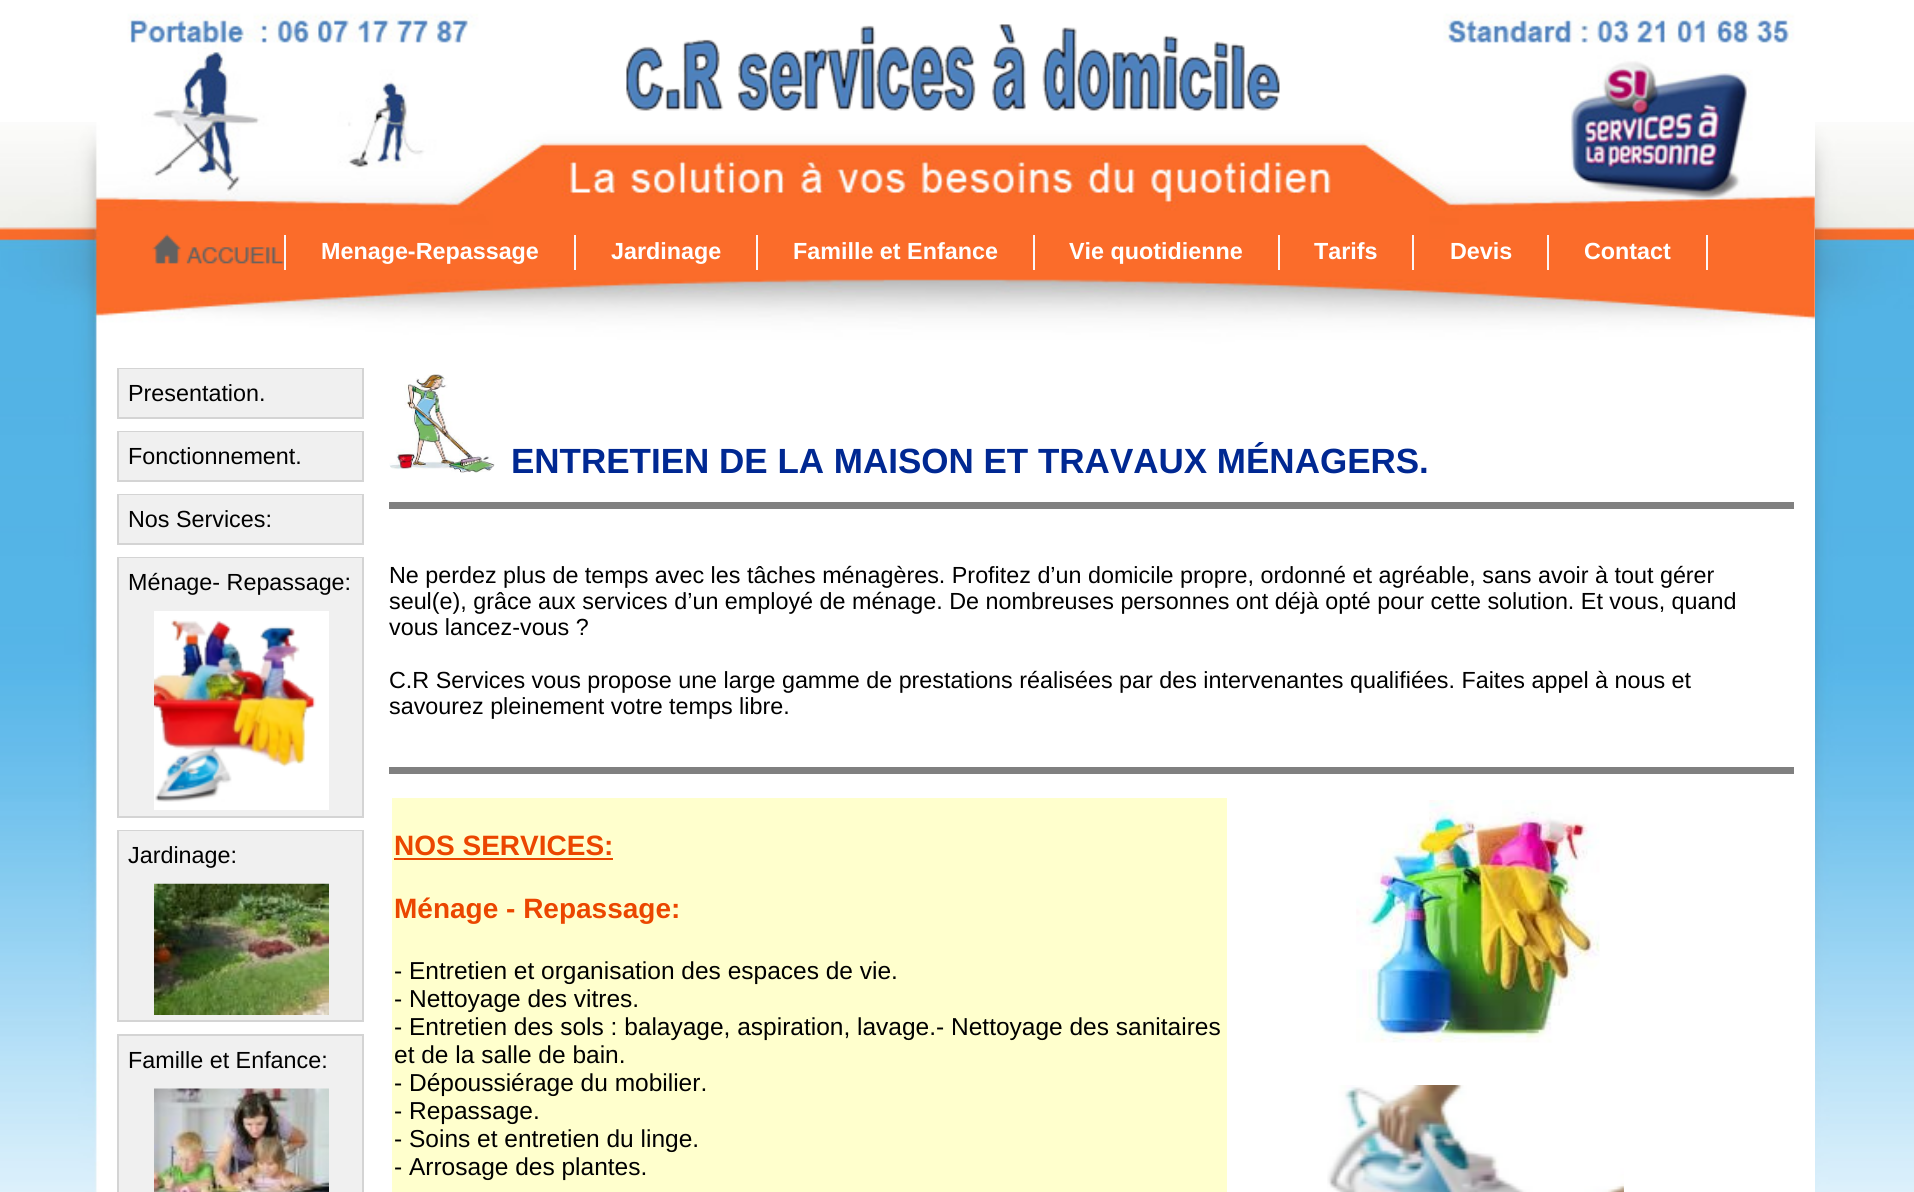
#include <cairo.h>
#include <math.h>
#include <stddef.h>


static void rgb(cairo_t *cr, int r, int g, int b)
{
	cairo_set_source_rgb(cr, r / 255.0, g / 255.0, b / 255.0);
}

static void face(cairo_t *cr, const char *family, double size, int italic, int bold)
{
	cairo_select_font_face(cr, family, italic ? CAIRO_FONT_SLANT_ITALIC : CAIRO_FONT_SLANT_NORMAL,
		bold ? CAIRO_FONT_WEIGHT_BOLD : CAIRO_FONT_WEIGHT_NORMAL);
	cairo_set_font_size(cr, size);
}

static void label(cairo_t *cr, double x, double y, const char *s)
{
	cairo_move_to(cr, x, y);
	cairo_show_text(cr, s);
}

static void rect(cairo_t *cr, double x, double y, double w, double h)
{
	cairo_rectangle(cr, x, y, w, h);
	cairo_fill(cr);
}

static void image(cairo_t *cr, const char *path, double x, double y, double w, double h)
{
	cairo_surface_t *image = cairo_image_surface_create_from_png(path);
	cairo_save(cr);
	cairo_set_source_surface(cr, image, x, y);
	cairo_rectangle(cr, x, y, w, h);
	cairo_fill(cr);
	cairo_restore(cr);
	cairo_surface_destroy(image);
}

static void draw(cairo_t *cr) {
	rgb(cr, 255, 255, 255);
	cairo_paint(cr);
	image(cr, "image0.png", 0, 122, 1914, 1070);
	rgb(cr, 255, 255, 255);
	rect(cr, 100, 122, 1715, 1070);
	image(cr, "image1.png", 100, 0, 1715, 350);
	image(cr, "image2.png", 626, 24, 654, 88);
	rgb(cr, 252, 247, 247);
	rect(cr, 284, 235, 2, 35);
	image(cr, "image3.png", 152, 234, 132, 30);
	rect(cr, 574, 235, 2, 35);
	face(cr, "Liberation Sans", 23.33, 0, 1);
	rgb(cr, 255, 255, 255);
	label(cr, 321, 259, "Menage-Repassage");
	rgb(cr, 252, 247, 247);
	rect(cr, 756, 235, 2, 35);
	rgb(cr, 255, 255, 255);
	label(cr, 611, 259, "Jardinage");
	rgb(cr, 252, 247, 247);
	rect(cr, 1033, 235, 2, 35);
	rgb(cr, 255, 255, 255);
	label(cr, 793, 259, "Famille et Enfance");
	rgb(cr, 252, 247, 247);
	rect(cr, 1278, 235, 2, 35);
	rgb(cr, 255, 255, 255);
	label(cr, 1069, 259, "Vie quotidienne");
	rgb(cr, 252, 247, 247);
	rect(cr, 1412, 235, 2, 35);
	rgb(cr, 255, 255, 255);
	label(cr, 1314, 259, "Tarifs");
	rgb(cr, 252, 247, 247);
	rect(cr, 1547, 235, 2, 35);
	rgb(cr, 255, 255, 255);
	label(cr, 1450, 259, "Devis");
	rgb(cr, 252, 247, 247);
	rect(cr, 1706, 235, 2, 35);
	rgb(cr, 255, 255, 255);
	label(cr, 1584, 259, "Contact");
	rgb(cr, 212, 212, 212);
	rect(cr, 117, 368, 247, 1);
	rect(cr, 362, 369, 2, 48);
	rect(cr, 117, 369, 2, 48);
	rgb(cr, 240, 240, 240);
	rect(cr, 119, 369, 243, 48);
	face(cr, "Liberation Sans", 23.33, 0, 0);
	rgb(cr, 0, 0, 0);
	label(cr, 128, 401, "Presentation.");
	rgb(cr, 212, 212, 212);
	rect(cr, 117, 417, 247, 2);
	rect(cr, 117, 431, 247, 1);
	rect(cr, 362, 432, 2, 48);
	rect(cr, 117, 432, 2, 48);
	rgb(cr, 240, 240, 240);
	rect(cr, 119, 432, 243, 48);
	rgb(cr, 0, 0, 0);
	label(cr, 128, 464, "Fonctionnement.");
	rgb(cr, 212, 212, 212);
	rect(cr, 117, 480, 247, 2);
	rect(cr, 117, 494, 247, 1);
	rect(cr, 362, 495, 2, 48);
	rect(cr, 117, 495, 2, 48);
	rgb(cr, 240, 240, 240);
	rect(cr, 119, 495, 243, 48);
	rgb(cr, 0, 0, 0);
	label(cr, 128, 527, "Nos Services:");
	rgb(cr, 212, 212, 212);
	rect(cr, 117, 543, 247, 2);
	rect(cr, 117, 557, 247, 1);
	rect(cr, 362, 558, 2, 258);
	rect(cr, 117, 558, 2, 258);
	rgb(cr, 240, 240, 240);
	rect(cr, 119, 558, 243, 258);
	rgb(cr, 0, 0, 0);
	label(cr, 128, 590, "Ménage- Repassage:");
	image(cr, "image4.png", 154, 611, 175, 199);
	rgb(cr, 212, 212, 212);
	rect(cr, 117, 816, 247, 2);
	rect(cr, 117, 830, 247, 1);
	rect(cr, 362, 831, 2, 189);
	rect(cr, 117, 831, 2, 189);
	rgb(cr, 240, 240, 240);
	rect(cr, 119, 831, 243, 189);
	rgb(cr, 0, 0, 0);
	label(cr, 128, 863, "Jardinage:");
	image(cr, "image5.png", 154, 883, 175, 132);
	rgb(cr, 212, 212, 212);
	rect(cr, 117, 1020, 247, 2);
	rect(cr, 117, 1034, 247, 2);
	rect(cr, 362, 1036, 2, 156);
	rect(cr, 117, 1036, 2, 156);
	rgb(cr, 240, 240, 240);
	rect(cr, 119, 1036, 243, 156);
	rgb(cr, 0, 0, 0);
	label(cr, 128, 1068, "Famille et Enfance:");
	image(cr, "image6.png", 154, 1088, 175, 104);
	image(cr, "image7.png", 389, 374, 106, 99);
	face(cr, "Liberation Sans", 35, 0, 1);
	rgb(cr, 0, 40, 146);
	label(cr, 511, 473, "ENTRETIEN DE LA MAISON ET TRAVAUX MÉNAGERS.");
	rgb(cr, 128, 128, 128);
	rect(cr, 389, 502, 1405, 7);
	face(cr, "Liberation Sans", 23.33, 0, 0);
	rgb(cr, 0, 0, 0);
	label(cr, 389, 583, "Ne perdez plus de temps avec les tâches ménagères. Profitez d’un domicile propre, ordonné et agréable, sans avoir à tout gérer");
	label(cr, 389, 609, "seul(e), grâce aux services d’un employé de ménage. De nombreuses personnes ont déjà opté pour cette solution. Et vous, quand");
	label(cr, 389, 635, "vous lancez-vous ?");
	label(cr, 389, 688, "C.R Services vous propose une large gamme de prestations réalisées par des intervenantes qualifiées. Faites appel à nous et");
	label(cr, 389, 714, "savourez pleinement votre temps libre.");
	rgb(cr, 128, 128, 128);
	rect(cr, 389, 767, 1405, 7);
	rgb(cr, 255, 255, 205);
	rect(cr, 392, 798, 835, 394);
	face(cr, "Liberation Sans", 28, 0, 1);
	rgb(cr, 235, 70, 0);
	label(cr, 394, 855, "NOS SERVICES:");
	rect(cr, 394, 858, 219, 2);
	label(cr, 394, 918, "Ménage - Repassage:");
	face(cr, "Liberation Sans", 24.5, 0, 0);
	rgb(cr, 0, 0, 0);
	label(cr, 394, 979, "- Entretien et organisation des espaces de vie.");
	label(cr, 394, 1007, "- Nettoyage des vitres.");
	label(cr, 394, 1035, "- Entretien des sols : balayage, aspiration, lavage.- Nettoyage des sanitaires");
	label(cr, 394, 1063, "et de la salle de bain.");
	label(cr, 394, 1091, "- Dépoussiérage du mobilier.");
	label(cr, 394, 1119, "- Repassage.");
	label(cr, 394, 1147, "- Soins et entretien du linge.");
	label(cr, 394, 1175, "- Arrosage des plantes.");
	image(cr, "image8.png", 1356, 800, 244, 243);
	image(cr, "image9.png", 1327, 1085, 297, 107);
}

int main(void) {
	cairo_surface_t *surface = cairo_image_surface_create(CAIRO_FORMAT_RGB24, 1914, 1192);
	cairo_t *cr = cairo_create(surface);
	cairo_font_options_t *options = cairo_font_options_create();
	cairo_font_options_set_hint_metrics(options, CAIRO_HINT_METRICS_OFF);
	cairo_font_options_set_hint_style(options, CAIRO_HINT_STYLE_NONE);
	cairo_set_font_options(cr, options);
	cairo_set_miter_limit(cr, 4);
	draw(cr);
	cairo_surface_write_to_png(surface, "render.png");
	cairo_font_options_destroy(options);
	cairo_destroy(cr);
	cairo_surface_destroy(surface);
	return 0;
}
